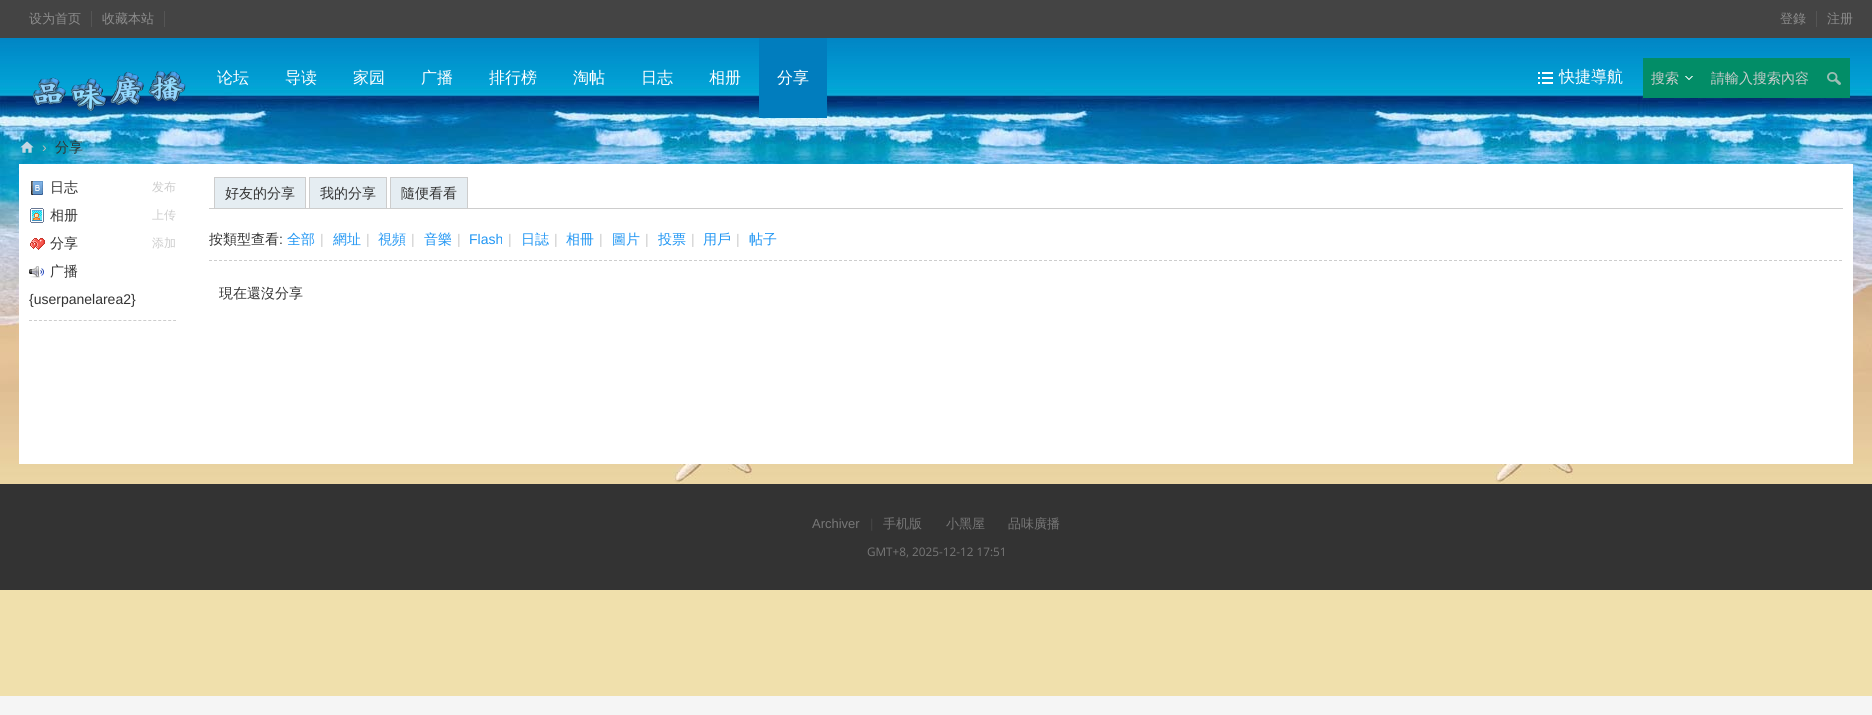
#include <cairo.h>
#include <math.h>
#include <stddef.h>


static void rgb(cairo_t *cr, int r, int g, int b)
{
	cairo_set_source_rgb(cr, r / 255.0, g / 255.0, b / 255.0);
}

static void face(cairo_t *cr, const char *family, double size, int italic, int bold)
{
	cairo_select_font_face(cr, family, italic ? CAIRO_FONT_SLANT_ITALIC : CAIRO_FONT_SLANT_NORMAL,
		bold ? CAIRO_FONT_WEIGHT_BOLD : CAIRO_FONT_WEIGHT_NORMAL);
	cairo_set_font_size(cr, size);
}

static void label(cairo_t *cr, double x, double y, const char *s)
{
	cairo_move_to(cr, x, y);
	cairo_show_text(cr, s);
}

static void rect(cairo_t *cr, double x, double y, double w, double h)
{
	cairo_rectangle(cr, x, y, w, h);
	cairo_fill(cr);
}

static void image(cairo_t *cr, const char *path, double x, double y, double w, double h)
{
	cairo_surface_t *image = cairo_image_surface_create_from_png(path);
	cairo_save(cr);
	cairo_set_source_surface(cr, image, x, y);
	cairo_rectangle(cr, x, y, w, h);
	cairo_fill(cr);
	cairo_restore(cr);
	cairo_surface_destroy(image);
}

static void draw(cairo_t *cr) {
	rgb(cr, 245, 245, 245);
	cairo_paint(cr);
	image(cr, "image0.png", 0, 38, 1872, 658);
	rgb(cr, 68, 68, 68);
	rect(cr, 0, 0, 1872, 38);
	rgb(cr, 85, 85, 85);
	rect(cr, 91, 11, 1, 16);
	face(cr, "WenQuanYi Zen Hei Medium", 13, 0, 0);
	rgb(cr, 140, 140, 140);
	label(cr, 29, 23, "设为首页");
	rgb(cr, 85, 85, 85);
	rect(cr, 164, 11, 1, 16);
	rgb(cr, 140, 140, 140);
	label(cr, 102, 23, "收藏本站");
	rgb(cr, 85, 85, 85);
	rect(cr, 1816, 11, 1, 16);
	rgb(cr, 140, 140, 140);
	label(cr, 1780, 23, "登錄");
	label(cr, 1827, 23, "注册");
	image(cr, "image1.png", 32, 71, 154, 40);
	face(cr, "WenQuanYi Zen Hei Medium", 16, 0, 0);
	rgb(cr, 255, 255, 255);
	label(cr, 217, 83, "论坛");
	label(cr, 285, 83, "导读");
	label(cr, 353, 83, "家园");
	label(cr, 421, 83, "广播");
	label(cr, 489, 83, "排行榜");
	label(cr, 573, 83, "淘帖");
	label(cr, 641, 83, "日志");
	label(cr, 709, 83, "相册");
	rgb(cr, 1, 125, 190);
	rect(cr, 759, 38, 68, 80);
	rgb(cr, 255, 255, 255);
	label(cr, 777, 83, "分享");
	image(cr, "image2.png", 1538, 72, 15, 12);
	label(cr, 1559, 82, "快捷導航");
	rgb(cr, 2, 141, 103);
	rect(cr, 1643, 58, 207, 40);
	image(cr, "image3.png", 1685, 76, 8, 4);
	face(cr, "WenQuanYi Zen Hei Medium", 14, 0, 0);
	rgb(cr, 204, 204, 204);
	label(cr, 1651, 83, "搜索");
	label(cr, 1711, 83, "請輸入搜索內容");
	image(cr, "image4.png", 1827, 72, 14, 13);
	image(cr, "image5.png", 20, 141, 14, 12);
	face(cr, "Liberation Sans", 14, 0, 0);
	rgb(cr, 189, 189, 189);
	label(cr, 42, 152, "›");
	face(cr, "WenQuanYi Zen Hei Medium", 14, 0, 0);
	rgb(cr, 51, 51, 51);
	label(cr, 55, 152, "分享");
	rgb(cr, 255, 255, 255);
	rect(cr, 19, 164, 1834, 300);
	image(cr, "image6.png", 31, 181, 12, 14);
	rgb(cr, 51, 51, 51);
	label(cr, 50, 192, "日志");
	face(cr, "WenQuanYi Zen Hei Medium", 12, 0, 0);
	rgb(cr, 204, 204, 204);
	label(cr, 152, 191, "发布");
	image(cr, "image7.png", 30, 208, 14, 15);
	face(cr, "WenQuanYi Zen Hei Medium", 14, 0, 0);
	rgb(cr, 51, 51, 51);
	label(cr, 50, 220, "相册");
	face(cr, "WenQuanYi Zen Hei Medium", 12, 0, 0);
	rgb(cr, 204, 204, 204);
	label(cr, 152, 219, "上传");
	image(cr, "image8.png", 30, 238, 15, 12);
	face(cr, "WenQuanYi Zen Hei Medium", 14, 0, 0);
	rgb(cr, 51, 51, 51);
	label(cr, 50, 248, "分享");
	face(cr, "WenQuanYi Zen Hei Medium", 12, 0, 0);
	rgb(cr, 204, 204, 204);
	label(cr, 152, 247, "添加");
	image(cr, "image9.png", 29, 266, 15, 12);
	face(cr, "WenQuanYi Zen Hei Medium", 14, 0, 0);
	rgb(cr, 51, 51, 51);
	label(cr, 50, 276, "广播");
	face(cr, "Liberation Sans", 14, 0, 0);
	label(cr, 29, 304, "{userpanelarea2}");
	cairo_new_path(cr);
	cairo_move_to(cr, 29, 320.5);
	cairo_line_to(cr, 176, 320.5);
	rgb(cr, 205, 205, 205);
	cairo_set_line_width(cr, 1);
	cairo_set_dash(cr, (double[]){3, 1.97}, 2, 0);
	cairo_stroke(cr);
	rect(cr, 209, 208, 1634, 1);
	rgb(cr, 229, 237, 242);
	cairo_rectangle(cr, 214.5, 177.5, 91, 31);
	cairo_fill_preserve(cr);
	rgb(cr, 205, 205, 205);
	cairo_set_dash(cr, NULL, 0, 0);
	cairo_stroke(cr);
	face(cr, "WenQuanYi Zen Hei Medium", 14, 0, 0);
	rgb(cr, 51, 51, 51);
	label(cr, 225, 198, "好友的分享");
	rgb(cr, 229, 237, 242);
	cairo_rectangle(cr, 309.5, 177.5, 77, 31);
	cairo_fill_preserve(cr);
	rgb(cr, 205, 205, 205);
	cairo_stroke(cr);
	rgb(cr, 51, 51, 51);
	label(cr, 320, 198, "我的分享");
	rgb(cr, 229, 237, 242);
	cairo_rectangle(cr, 390.5, 177.5, 77, 31);
	cairo_fill_preserve(cr);
	rgb(cr, 205, 205, 205);
	cairo_stroke(cr);
	rgb(cr, 51, 51, 51);
	label(cr, 401, 198, "隨便看看");
	cairo_new_path(cr);
	cairo_move_to(cr, 209, 260.5);
	cairo_line_to(cr, 1843, 260.5);
	rgb(cr, 205, 205, 205);
	cairo_set_dash(cr, (double[]){3, 2}, 2, 0);
	cairo_stroke(cr);
	rgb(cr, 51, 51, 51);
	label(cr, 209, 244, "按類型查看");
	face(cr, "Liberation Sans", 14, 0, 0);
	label(cr, 279, 244, ":");
	face(cr, "WenQuanYi Zen Hei Medium", 14, 0, 0);
	rgb(cr, 33, 150, 243);
	label(cr, 287, 244, "全部");
	face(cr, "Liberation Sans", 14, 0, 0);
	rgb(cr, 204, 204, 204);
	label(cr, 320, 244, "|");
	face(cr, "WenQuanYi Zen Hei Medium", 14, 0, 0);
	rgb(cr, 33, 150, 243);
	label(cr, 333, 244, "網址");
	face(cr, "Liberation Sans", 14, 0, 0);
	rgb(cr, 204, 204, 204);
	label(cr, 366, 244, "|");
	face(cr, "WenQuanYi Zen Hei Medium", 14, 0, 0);
	rgb(cr, 33, 150, 243);
	label(cr, 378, 244, "視頻");
	face(cr, "Liberation Sans", 14, 0, 0);
	rgb(cr, 204, 204, 204);
	label(cr, 411, 244, "|");
	face(cr, "WenQuanYi Zen Hei Medium", 14, 0, 0);
	rgb(cr, 33, 150, 243);
	label(cr, 424, 244, "音樂");
	face(cr, "Liberation Sans", 14, 0, 0);
	rgb(cr, 204, 204, 204);
	label(cr, 457, 244, "|");
	rgb(cr, 33, 150, 243);
	label(cr, 469, 244, "Flash");
	rgb(cr, 204, 204, 204);
	label(cr, 508, 244, "|");
	face(cr, "WenQuanYi Zen Hei Medium", 14, 0, 0);
	rgb(cr, 33, 150, 243);
	label(cr, 521, 244, "日誌");
	face(cr, "Liberation Sans", 14, 0, 0);
	rgb(cr, 204, 204, 204);
	label(cr, 554, 244, "|");
	face(cr, "WenQuanYi Zen Hei Medium", 14, 0, 0);
	rgb(cr, 33, 150, 243);
	label(cr, 566, 244, "相冊");
	face(cr, "Liberation Sans", 14, 0, 0);
	rgb(cr, 204, 204, 204);
	label(cr, 599, 244, "|");
	face(cr, "WenQuanYi Zen Hei Medium", 14, 0, 0);
	rgb(cr, 33, 150, 243);
	label(cr, 612, 244, "圖片");
	face(cr, "Liberation Sans", 14, 0, 0);
	rgb(cr, 204, 204, 204);
	label(cr, 645, 244, "|");
	face(cr, "WenQuanYi Zen Hei Medium", 14, 0, 0);
	rgb(cr, 33, 150, 243);
	label(cr, 658, 244, "投票");
	face(cr, "Liberation Sans", 14, 0, 0);
	rgb(cr, 204, 204, 204);
	label(cr, 691, 244, "|");
	face(cr, "WenQuanYi Zen Hei Medium", 14, 0, 0);
	rgb(cr, 33, 150, 243);
	label(cr, 703, 244, "用戶");
	face(cr, "Liberation Sans", 14, 0, 0);
	rgb(cr, 204, 204, 204);
	label(cr, 736, 244, "|");
	face(cr, "WenQuanYi Zen Hei Medium", 14, 0, 0);
	rgb(cr, 33, 150, 243);
	label(cr, 749, 244, "帖子");
	rgb(cr, 51, 51, 51);
	label(cr, 219, 298, "現在還沒分享");
	rect(cr, 0, 484, 1872, 106);
	face(cr, "Liberation Sans", 13, 0, 0);
	rgb(cr, 119, 119, 119);
	label(cr, 812, 528, "Archiver");
	rgb(cr, 68, 68, 68);
	label(cr, 870, 528, "|");
	face(cr, "WenQuanYi Zen Hei Medium", 13, 0, 0);
	rgb(cr, 119, 119, 119);
	label(cr, 883, 528, "手机版");
	label(cr, 946, 528, "小黑屋");
	label(cr, 1008, 528, "品味廣播");
	face(cr, "Open Sans", 11.75, 0, 0);
	label(cr, 867, 556, "GMT+8, 2025-12-12 17:51");
}

int main(void) {
	cairo_surface_t *surface = cairo_image_surface_create(CAIRO_FORMAT_RGB24, 1872, 715);
	cairo_t *cr = cairo_create(surface);
	cairo_font_options_t *options = cairo_font_options_create();
	cairo_font_options_set_hint_metrics(options, CAIRO_HINT_METRICS_OFF);
	cairo_font_options_set_hint_style(options, CAIRO_HINT_STYLE_NONE);
	cairo_set_font_options(cr, options);
	cairo_set_miter_limit(cr, 4);
	draw(cr);
	cairo_surface_write_to_png(surface, "render.png");
	cairo_font_options_destroy(options);
	cairo_destroy(cr);
	cairo_surface_destroy(surface);
	return 0;
}
